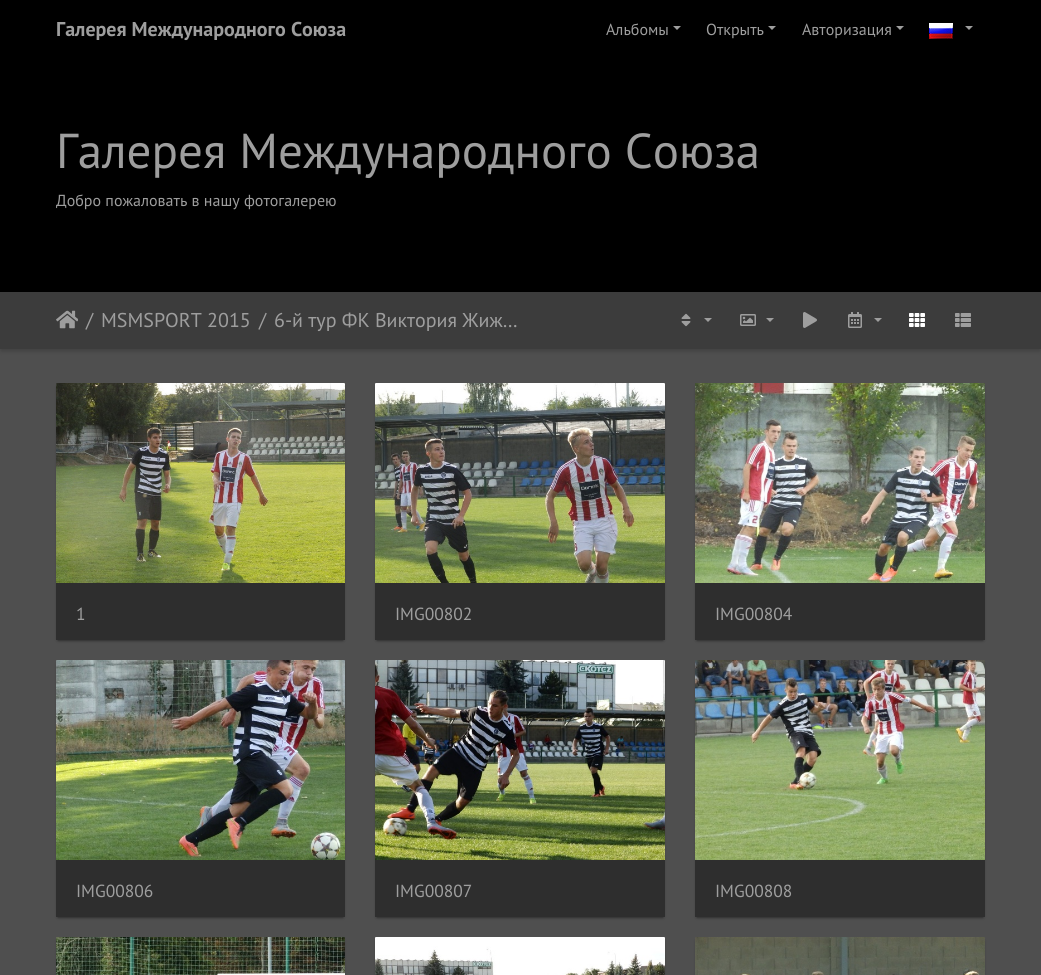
#include <cairo.h>
#include <math.h>
#include <stddef.h>


static void rgb(cairo_t *cr, int r, int g, int b)
{
	cairo_set_source_rgb(cr, r / 255.0, g / 255.0, b / 255.0);
}

static void face(cairo_t *cr, const char *family, double size, int italic, int bold)
{
	cairo_select_font_face(cr, family, italic ? CAIRO_FONT_SLANT_ITALIC : CAIRO_FONT_SLANT_NORMAL,
		bold ? CAIRO_FONT_WEIGHT_BOLD : CAIRO_FONT_WEIGHT_NORMAL);
	cairo_set_font_size(cr, size);
}

static void label(cairo_t *cr, double x, double y, const char *s)
{
	cairo_move_to(cr, x, y);
	cairo_show_text(cr, s);
}

static void rect(cairo_t *cr, double x, double y, double w, double h)
{
	cairo_rectangle(cr, x, y, w, h);
	cairo_fill(cr);
}

static void rrect(cairo_t *cr, double x, double y, double w, double h, double r)
{
	cairo_new_sub_path(cr);
	cairo_arc(cr, x + w - r, y + h - r, r, 0, M_PI / 2);
	cairo_arc(cr, x + r, y + h - r, r, M_PI / 2, M_PI);
	cairo_arc(cr, x + r, y + r, r, M_PI, 1.5 * M_PI);
	cairo_arc(cr, x + w - r, y + r, r, 1.5 * M_PI, 2 * M_PI);
	cairo_close_path(cr);
}

static void soft_shadow(cairo_t *cr, double x, double y, double w, double h, double r, double blur, double alpha)
{
	cairo_push_group_with_content(cr, CAIRO_CONTENT_ALPHA);
	cairo_set_operator(cr, CAIRO_OPERATOR_SOURCE);
	for (int i = 15; i >= -15 && fmin(w, h) + blur * i / 3 > 0; i -= 2) {
		double e = blur * i / 6;
		cairo_set_source_rgba(cr, 0, 0, 0, alpha * erfc((i - 1) / 8.5) / 2);
		rrect(cr, x - e, y - e, w + 2 * e, h + 2 * e, fmax(0, fmin(r + e + blur * .6, fmin(w, h) / 2 + e)));
		cairo_fill(cr);
	}
	cairo_pattern_t *soft = cairo_pop_group(cr);
	cairo_mask(cr, soft);
	cairo_pattern_destroy(soft);
}

static void image(cairo_t *cr, const char *path, double x, double y, double w, double h)
{
	cairo_surface_t *image = cairo_image_surface_create_from_png(path);
	cairo_save(cr);
	cairo_set_source_surface(cr, image, x, y);
	cairo_rectangle(cr, x, y, w, h);
	cairo_fill(cr);
	cairo_restore(cr);
	cairo_surface_destroy(image);
}

static void draw(cairo_t *cr) {
	rgb(cr, 79, 79, 79);
	cairo_paint(cr);
	rgb(cr, 0, 0, 0);
	rect(cr, 0, 0, 1041, 292);
	face(cr, "PT Sans", 20, 0, 1);
	rgb(cr, 158, 158, 158);
	label(cr, 56, 36, "Галерея Международного Союза");
	face(cr, "PT Sans", 16, 0, 0);
	label(cr, 606, 35, "Альбомы");
	cairo_new_path(cr);
	cairo_move_to(cr, 673, 26);
	cairo_line_to(cr, 681, 26);
	cairo_line_to(cr, 677, 30);
	cairo_close_path(cr);
	cairo_fill(cr);
	label(cr, 706, 35, "Открыть");
	cairo_new_path(cr);
	cairo_move_to(cr, 768, 26);
	cairo_line_to(cr, 776, 26);
	cairo_line_to(cr, 772, 30);
	cairo_close_path(cr);
	cairo_fill(cr);
	label(cr, 802, 35, "Авторизация");
	cairo_new_path(cr);
	cairo_move_to(cr, 896, 26);
	cairo_line_to(cr, 904, 26);
	cairo_line_to(cr, 900, 30);
	cairo_close_path(cr);
	cairo_fill(cr);
	image(cr, "image0.png", 929, 23, 24, 16);
	cairo_new_path(cr);
	cairo_move_to(cr, 965, 26);
	cairo_line_to(cr, 973, 26);
	cairo_line_to(cr, 969, 30);
	cairo_close_path(cr);
	cairo_fill(cr);
	face(cr, "PT Sans", 49, 0, 0);
	label(cr, 56, 168, "Галерея Международного Союза");
	face(cr, "PT Sans", 16, 0, 0);
	label(cr, 56, 206, "Добро пожаловать в нашу фотогалерею");
	rgb(cr, 0, 0, 0);
	soft_shadow(cr, 1, 296, 1039, 55, 0, 2.5, 0.2);
	rgb(cr, 60, 60, 60);
	rect(cr, 0, 292, 1041, 57);
	image(cr, "image1.png", 56, 310, 22, 19);
	face(cr, "PT Sans", 20, 0, 0);
	rgb(cr, 158, 158, 158);
	label(cr, 86, 327, "/");
	label(cr, 101, 327, "MSMSPORT 2015");
	label(cr, 259, 327, "/");
	label(cr, 274, 327, "6-й тур ФК Виктория Жиж…");
	image(cr, "image2.png", 681, 313, 10, 14);
	cairo_new_path(cr);
	cairo_move_to(cr, 704, 318);
	cairo_line_to(cr, 712, 318);
	cairo_line_to(cr, 708, 322);
	cairo_close_path(cr);
	cairo_fill(cr);
	image(cr, "image3.png", 740, 314, 16, 12);
	cairo_new_path(cr);
	cairo_move_to(cr, 766, 318);
	cairo_line_to(cr, 774, 318);
	cairo_line_to(cr, 770, 322);
	cairo_close_path(cr);
	cairo_fill(cr);
	image(cr, "image4.png", 803, 312, 14, 16);
	image(cr, "image5.png", 848, 312, 14, 16);
	cairo_new_path(cr);
	cairo_move_to(cr, 874, 318);
	cairo_line_to(cr, 882, 318);
	cairo_line_to(cr, 878, 322);
	cairo_close_path(cr);
	cairo_fill(cr);
	image(cr, "image6.png", 909, 313, 16, 14);
	image(cr, "image7.png", 955, 313, 16, 14);
	rgb(cr, 0, 0, 0);
	soft_shadow(cr, 58, 388, 285, 253, 0, 0.5, 0.2);
	soft_shadow(cr, 56, 385, 289, 257, 2, 1, 0.14);
	image(cr, "image8.png", 56, 383, 289, 200);
	rgb(cr, 46, 46, 46);
	rect(cr, 56, 583, 289, 57);
	face(cr, "PT Sans", 17.5, 0, 0);
	rgb(cr, 158, 158, 158);
	label(cr, 76, 620, "1");
	rgb(cr, 0, 0, 0);
	soft_shadow(cr, 377, 388, 286, 253, 0, 0.5, 0.2);
	soft_shadow(cr, 375, 385, 290, 257, 2, 1, 0.14);
	image(cr, "image9.png", 375, 383, 290, 200);
	rgb(cr, 46, 46, 46);
	rect(cr, 375, 583, 290, 57);
	rgb(cr, 158, 158, 158);
	label(cr, 395, 620, "IMG00802");
	rgb(cr, 0, 0, 0);
	soft_shadow(cr, 697, 388, 286, 253, 0, 0.5, 0.2);
	soft_shadow(cr, 695, 385, 290, 257, 2, 1, 0.14);
	image(cr, "image10.png", 695, 383, 290, 200);
	rgb(cr, 46, 46, 46);
	rect(cr, 695, 583, 290, 57);
	rgb(cr, 158, 158, 158);
	label(cr, 715, 620, "IMG00804");
	rgb(cr, 0, 0, 0);
	soft_shadow(cr, 58, 665, 285, 253, 0, 0.5, 0.2);
	soft_shadow(cr, 56, 662, 289, 257, 2, 1, 0.14);
	image(cr, "image11.png", 56, 660, 289, 200);
	rgb(cr, 46, 46, 46);
	rect(cr, 56, 860, 289, 57);
	rgb(cr, 158, 158, 158);
	label(cr, 76, 897, "IMG00806");
	rgb(cr, 0, 0, 0);
	soft_shadow(cr, 377, 665, 286, 253, 0, 0.5, 0.2);
	soft_shadow(cr, 375, 662, 290, 257, 2, 1, 0.14);
	image(cr, "image12.png", 375, 660, 290, 200);
	rgb(cr, 46, 46, 46);
	rect(cr, 375, 860, 290, 57);
	rgb(cr, 158, 158, 158);
	label(cr, 395, 897, "IMG00807");
	rgb(cr, 0, 0, 0);
	soft_shadow(cr, 697, 665, 286, 253, 0, 0.5, 0.2);
	soft_shadow(cr, 695, 662, 290, 257, 2, 1, 0.14);
	image(cr, "image13.png", 695, 660, 290, 200);
	rgb(cr, 46, 46, 46);
	rect(cr, 695, 860, 290, 57);
	rgb(cr, 158, 158, 158);
	label(cr, 715, 897, "IMG00808");
	rgb(cr, 0, 0, 0);
	soft_shadow(cr, 56, 939, 289, 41, 2, 1, 0.14);
	image(cr, "image14.png", 56, 937, 289, 38);
	soft_shadow(cr, 375, 939, 290, 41, 2, 1, 0.14);
	image(cr, "image15.png", 375, 937, 290, 38);
	soft_shadow(cr, 695, 939, 290, 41, 2, 1, 0.14);
	image(cr, "image16.png", 695, 937, 290, 38);
}

int main(void) {
	cairo_surface_t *surface = cairo_image_surface_create(CAIRO_FORMAT_RGB24, 1041, 975);
	cairo_t *cr = cairo_create(surface);
	cairo_font_options_t *options = cairo_font_options_create();
	cairo_font_options_set_hint_metrics(options, CAIRO_HINT_METRICS_OFF);
	cairo_font_options_set_hint_style(options, CAIRO_HINT_STYLE_NONE);
	cairo_set_font_options(cr, options);
	cairo_set_miter_limit(cr, 4);
	draw(cr);
	cairo_surface_write_to_png(surface, "render.png");
	cairo_font_options_destroy(options);
	cairo_destroy(cr);
	cairo_surface_destroy(surface);
	return 0;
}
